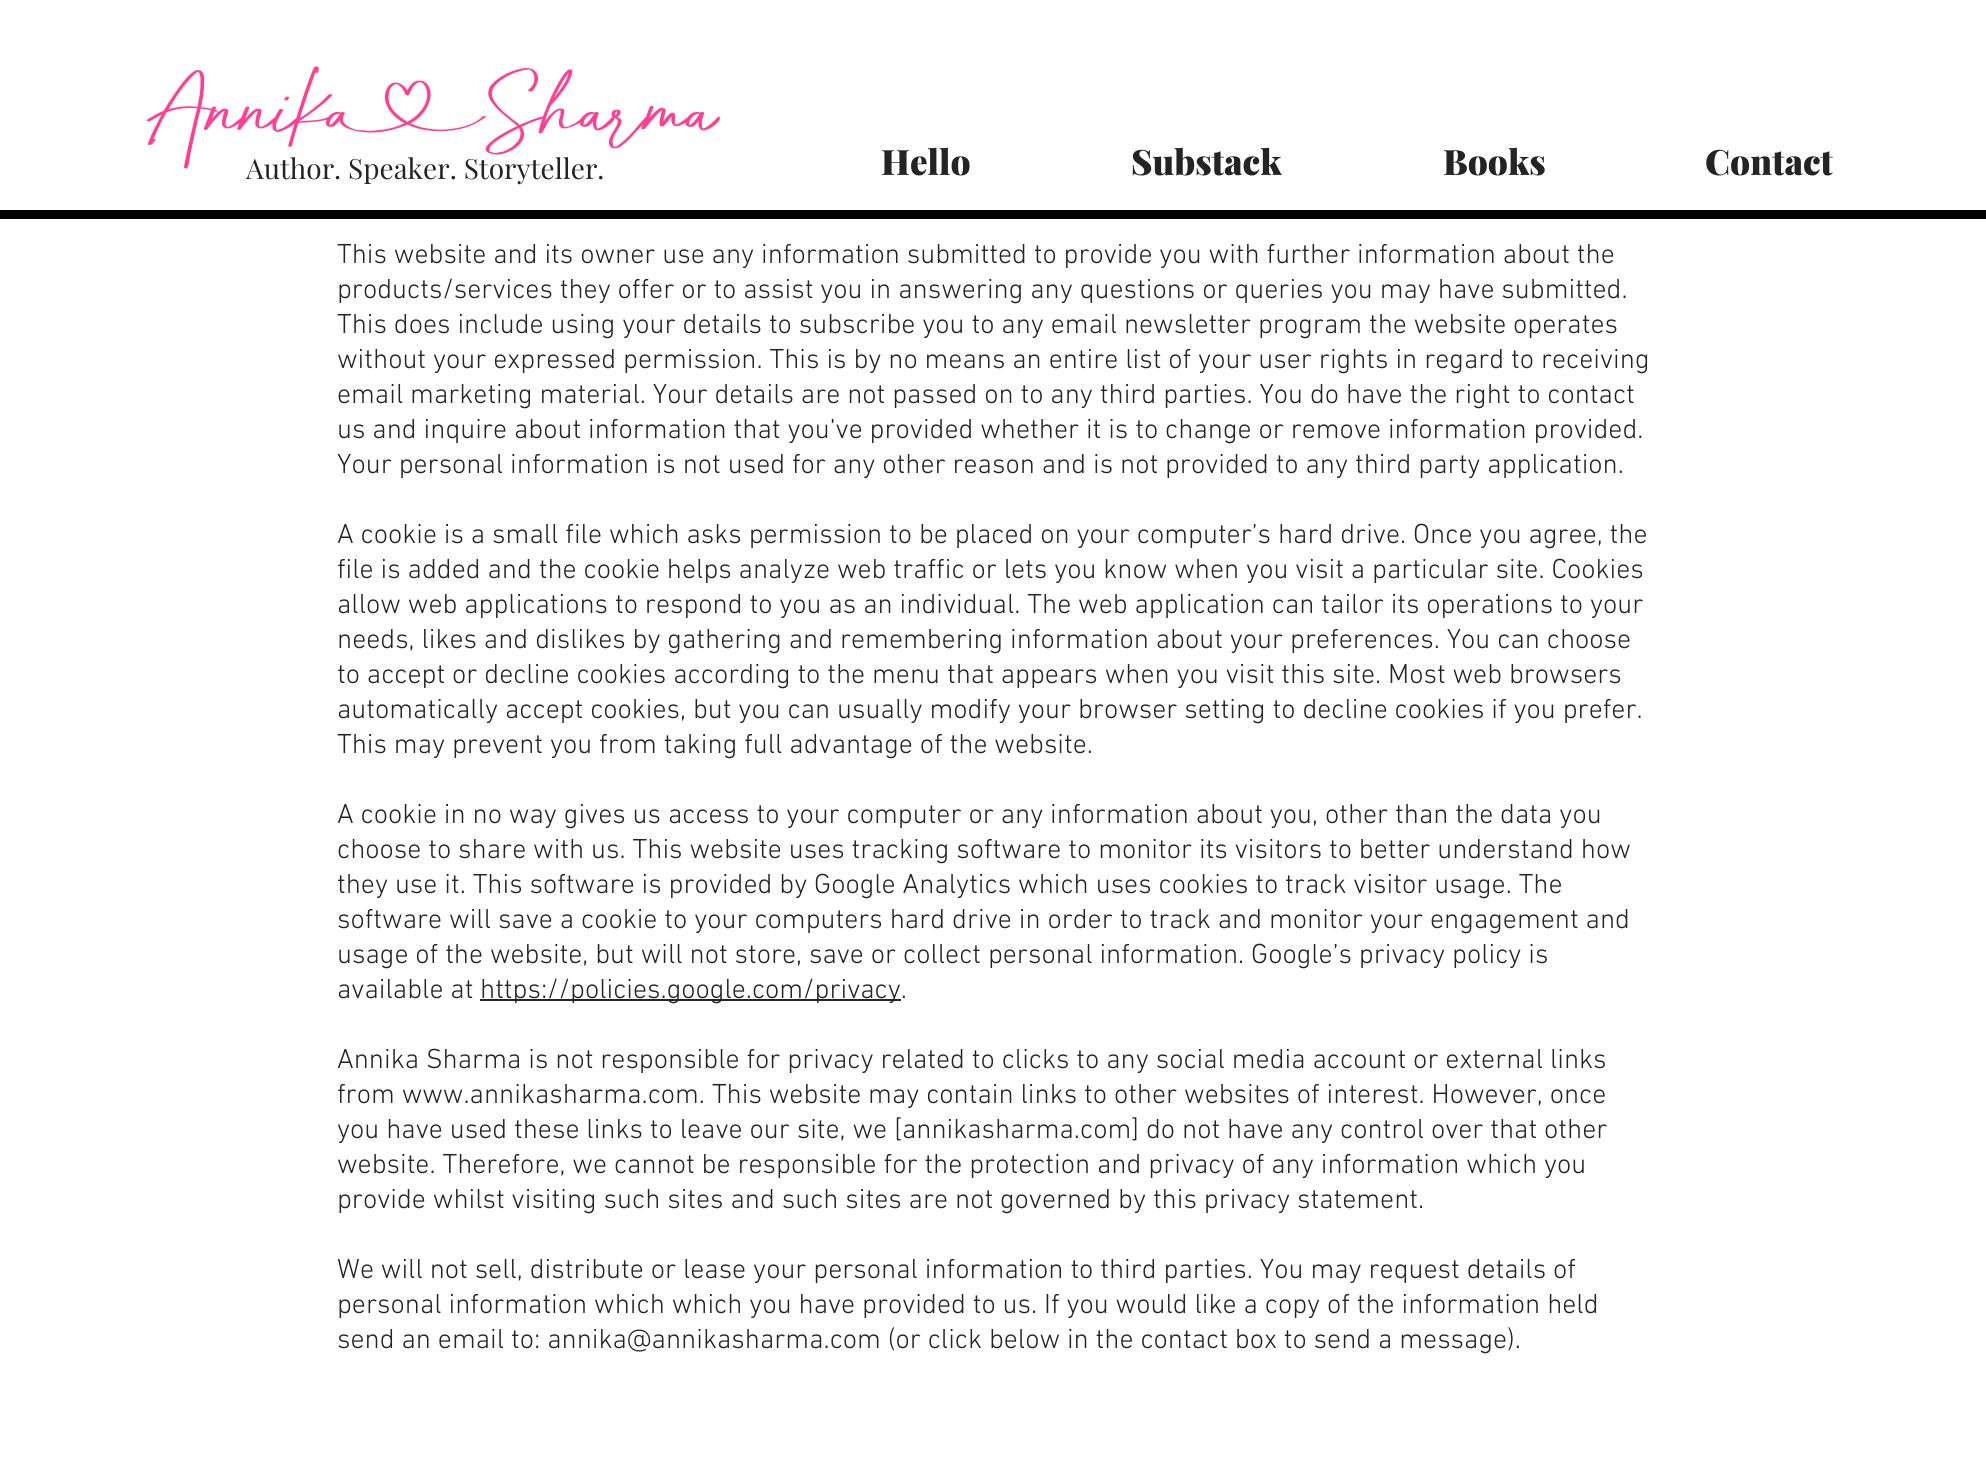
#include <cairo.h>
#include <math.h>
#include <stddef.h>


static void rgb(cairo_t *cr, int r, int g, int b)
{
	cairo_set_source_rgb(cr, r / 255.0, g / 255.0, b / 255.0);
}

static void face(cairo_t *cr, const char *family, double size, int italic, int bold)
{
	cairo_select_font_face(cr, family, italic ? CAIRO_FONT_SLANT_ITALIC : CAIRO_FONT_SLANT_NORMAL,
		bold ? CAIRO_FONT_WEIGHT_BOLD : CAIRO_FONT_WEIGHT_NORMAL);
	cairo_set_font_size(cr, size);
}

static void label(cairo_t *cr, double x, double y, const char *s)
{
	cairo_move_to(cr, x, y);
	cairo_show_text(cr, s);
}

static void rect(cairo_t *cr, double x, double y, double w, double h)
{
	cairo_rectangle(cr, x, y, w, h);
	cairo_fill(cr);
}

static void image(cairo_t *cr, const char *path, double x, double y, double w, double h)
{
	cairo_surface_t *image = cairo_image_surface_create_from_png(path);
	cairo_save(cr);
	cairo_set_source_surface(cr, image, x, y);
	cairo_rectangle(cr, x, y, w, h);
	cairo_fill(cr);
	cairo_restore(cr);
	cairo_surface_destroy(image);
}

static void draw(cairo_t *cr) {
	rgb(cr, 255, 255, 255);
	cairo_paint(cr);
	image(cr, "image0.png", 146, 66, 574, 103);
	face(cr, "Playfair Display", 28, 0, 0);
	rgb(cr, 36, 36, 36);
	label(cr, 246, 179, "Author. Speaker. Storyteller.");
	face(cr, "Playfair Display Black", 35, 0, 0);
	label(cr, 881, 175, "Hello");
	label(cr, 1131, 175, "Substack");
	label(cr, 1443, 175, "Books");
	label(cr, 1705, 175, "Contact");
	rgb(cr, 0, 0, 0);
	rect(cr, 0, 210, 1986, 9);
	face(cr, "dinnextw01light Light", 28, 0, 0);
	rgb(cr, 36, 36, 36);
	label(cr, 337, 263, "This website and its owner use any information submitted to provide you with further information about the");
	label(cr, 337, 298, "products/services they offer or to assist you in answering any questions or queries you may have submitted.");
	label(cr, 337, 333, "This does include using your details to subscribe you to any email newsletter program the website operates");
	label(cr, 337, 368, "without your expressed permission. This is by no means an entire list of your user rights in regard to receiving");
	label(cr, 337, 403, "email marketing material. Your details are not passed on to any third parties. You do have the right to contact");
	label(cr, 337, 438, "us and inquire about information that you’ve provided whether it is to change or remove information provided.");
	label(cr, 337, 473, "Your personal information is not used for any other reason and is not provided to any third party application.");
	label(cr, 337, 543, "A cookie is a small file which asks permission to be placed on your computer’s hard drive. Once you agree, the");
	label(cr, 337, 578, "file is added and the cookie helps analyze web traffic or lets you know when you visit a particular site. Cookies");
	label(cr, 337, 613, "allow web applications to respond to you as an individual. The web application can tailor its operations to your");
	label(cr, 337, 648, "needs, likes and dislikes by gathering and remembering information about your preferences. You can choose");
	label(cr, 337, 683, "to accept or decline cookies according to the menu that appears when you visit this site. Most web browsers");
	label(cr, 337, 718, "automatically accept cookies, but you can usually modify your browser setting to decline cookies if you prefer.");
	label(cr, 337, 753, "This may prevent you from taking full advantage of the website.");
	label(cr, 337, 823, "A cookie in no way gives us access to your computer or any information about you, other than the data you");
	label(cr, 337, 858, "choose to share with us. This website uses tracking software to monitor its visitors to better understand how");
	label(cr, 337, 893, "they use it. This software is provided by Google Analytics which uses cookies to track visitor usage. The");
	label(cr, 337, 928, "software will save a cookie to your computers hard drive in order to track and monitor your engagement and");
	label(cr, 337, 963, "usage of the website, but will not store, save or collect personal information. Google’s privacy policy is");
	label(cr, 337, 998, "available at");
	rect(cr, 480, 999, 421, 2);
	label(cr, 480, 998, "https://policies.google.com/privacy.");
	label(cr, 337, 1068, "Annika Sharma is not responsible for privacy related to clicks to any social media account or external links");
	label(cr, 337, 1103, "from www.annikasharma.com. This website may contain links to other websites of interest. However, once");
	label(cr, 337, 1138, "you have used these links to leave our site, we [annikasharma.com] do not have any control over that other");
	label(cr, 337, 1173, "website. Therefore, we cannot be responsible for the protection and privacy of any information which you");
	label(cr, 337, 1208, "provide whilst visiting such sites and such sites are not governed by this privacy statement.");
	label(cr, 337, 1278, "We will not sell, distribute or lease your personal information to third parties. You may request details of");
	label(cr, 337, 1313, "personal information which which you have provided to us. If you would like a copy of the information held");
	label(cr, 337, 1348, "send an email to: annika@annikasharma.com (or click below in the contact box to send a message).");
}

int main(void) {
	cairo_surface_t *surface = cairo_image_surface_create(CAIRO_FORMAT_RGB24, 1986, 1471);
	cairo_t *cr = cairo_create(surface);
	cairo_font_options_t *options = cairo_font_options_create();
	cairo_font_options_set_hint_metrics(options, CAIRO_HINT_METRICS_OFF);
	cairo_font_options_set_hint_style(options, CAIRO_HINT_STYLE_NONE);
	cairo_set_font_options(cr, options);
	cairo_set_miter_limit(cr, 4);
	draw(cr);
	cairo_surface_write_to_png(surface, "render.png");
	cairo_font_options_destroy(options);
	cairo_destroy(cr);
	cairo_surface_destroy(surface);
	return 0;
}
